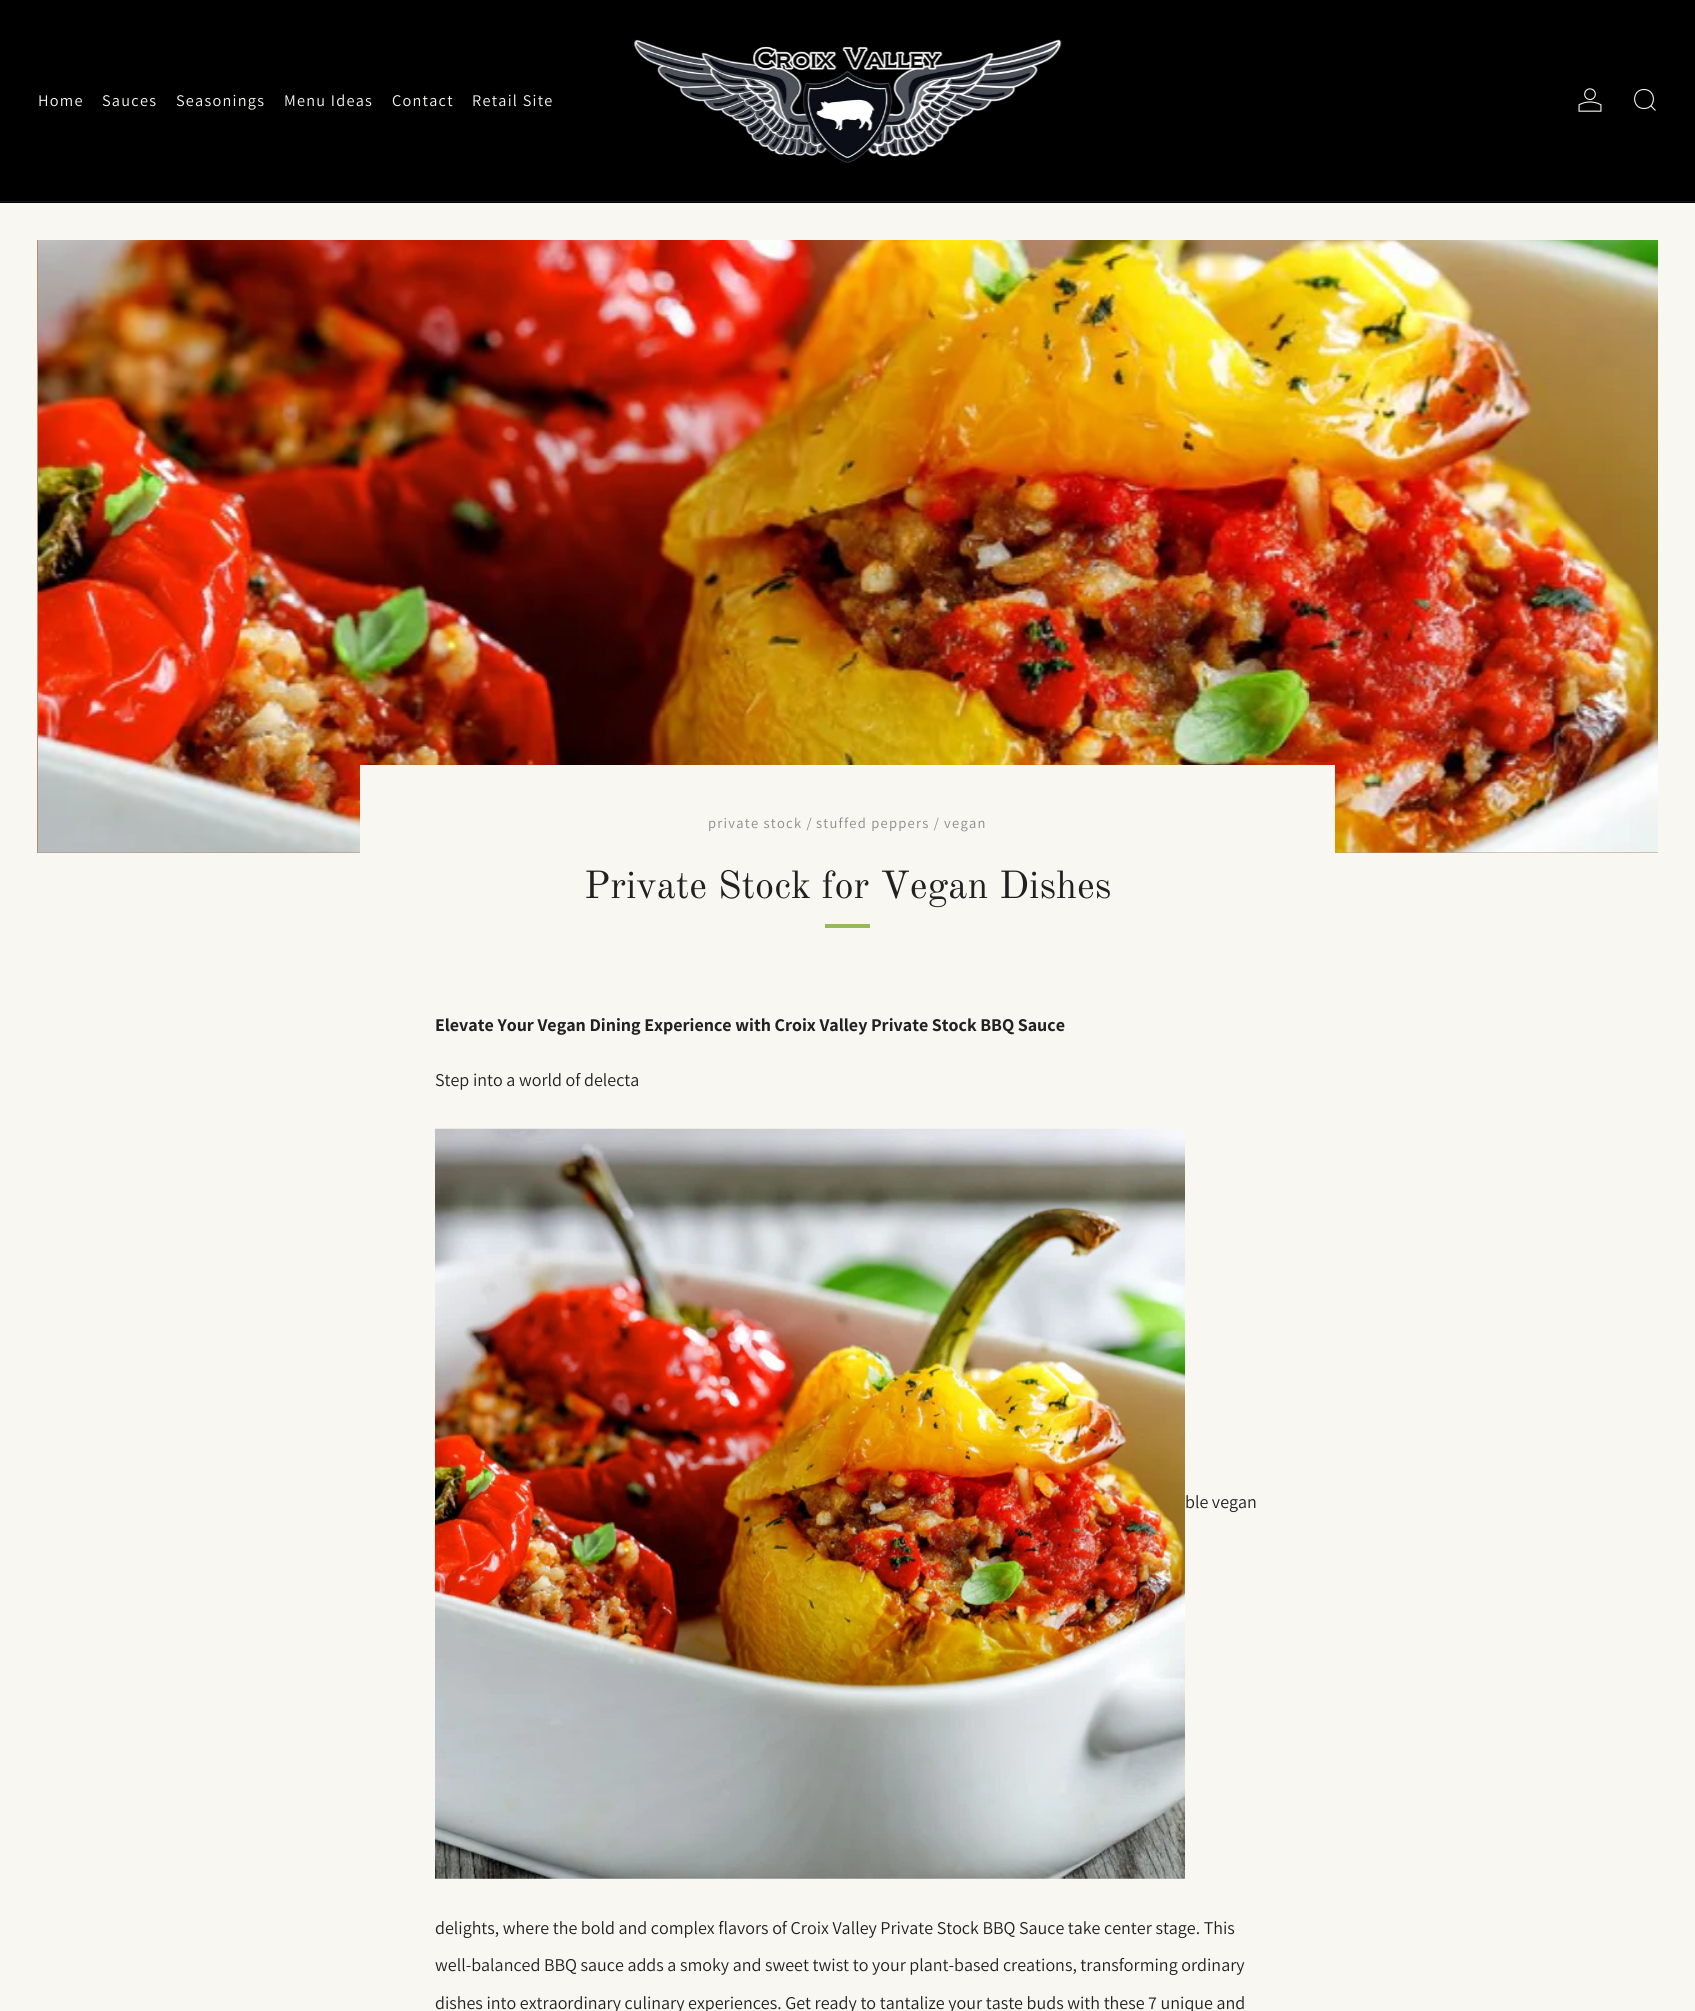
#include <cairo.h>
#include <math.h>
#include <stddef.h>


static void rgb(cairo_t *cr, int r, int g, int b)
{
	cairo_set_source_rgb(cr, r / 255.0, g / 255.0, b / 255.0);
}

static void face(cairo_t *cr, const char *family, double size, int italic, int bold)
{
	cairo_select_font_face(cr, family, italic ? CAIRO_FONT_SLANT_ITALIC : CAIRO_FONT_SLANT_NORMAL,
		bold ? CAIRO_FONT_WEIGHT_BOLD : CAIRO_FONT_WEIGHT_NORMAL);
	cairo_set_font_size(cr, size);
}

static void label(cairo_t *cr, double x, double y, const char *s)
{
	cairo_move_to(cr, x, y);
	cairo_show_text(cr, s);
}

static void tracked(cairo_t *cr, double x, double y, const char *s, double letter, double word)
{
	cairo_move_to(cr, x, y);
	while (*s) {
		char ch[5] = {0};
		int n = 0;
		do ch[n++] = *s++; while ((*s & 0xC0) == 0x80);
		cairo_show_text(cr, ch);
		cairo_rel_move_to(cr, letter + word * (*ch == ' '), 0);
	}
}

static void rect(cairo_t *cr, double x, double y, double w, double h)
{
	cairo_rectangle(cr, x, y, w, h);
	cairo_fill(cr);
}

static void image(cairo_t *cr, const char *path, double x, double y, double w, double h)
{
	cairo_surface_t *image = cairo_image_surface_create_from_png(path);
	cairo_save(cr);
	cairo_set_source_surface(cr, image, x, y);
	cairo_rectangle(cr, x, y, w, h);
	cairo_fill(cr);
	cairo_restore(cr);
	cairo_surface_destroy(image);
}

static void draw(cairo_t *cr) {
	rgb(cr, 248, 247, 241);
	cairo_paint(cr);
	rgb(cr, 0, 0, 0);
	rect(cr, 0, 0, 1695, 203);
	rgb(cr, 25, 25, 24);
	rect(cr, 0, 201, 1695, 1);
	face(cr, "Assistant", 16.25, 0, 0);
	rgb(cr, 248, 247, 241);
	tracked(cr, 38, 106, "Home", 1.25, 0);
	tracked(cr, 102, 106, "Sauces", 1.25, 0);
	tracked(cr, 176, 106, "Seasonings", 1.25, 0);
	tracked(cr, 284, 106, "Menu Ideas", 1.25, 0);
	tracked(cr, 392, 106, "Contact", 1.25, 0);
	tracked(cr, 472, 106, "Retail Site", 1.25, 0);
	image(cr, "image0.png", 1578, 88, 24, 24);
	cairo_new_path(cr);
	cairo_move_to(cr, 1644, 108.5);
	cairo_curve_to(cr, 1656.5, 108.5, 1656.5, 89.5, 1644, 89.5);
	cairo_curve_to(cr, 1631.5, 89.5, 1631.5, 108.5, 1644, 108.5);
	cairo_close_path(cr);
	cairo_move_to(cr, 1651, 106);
	cairo_line_to(cr, 1655.5, 110.5);
	cairo_set_line_width(cr, 1.1);
	cairo_stroke(cr);
	image(cr, "image1.png", 633, 39, 429, 124);
	rgb(cr, 178, 141, 113);
	rect(cr, 37, 240, 1621, 613);
	image(cr, "image2.png", 38, 240, 1620, 613);
	rgb(cr, 248, 247, 241);
	rect(cr, 360, 765, 975, 88);
	face(cr, "Assistant", 14.6, 0, 0);
	rgb(cr, 139, 139, 139);
	tracked(cr, 708, 828, "private stock /", 1.25, 0);
	tracked(cr, 816, 828, "stuffed peppers /", 1.25, 0);
	tracked(cr, 944, 828, "vegan", 1.25, 0);
	face(cr, "Old Standard TT", 38.5, 0, 0);
	rgb(cr, 33, 33, 33);
	label(cr, 584, 898, "Private Stock for Vegan Dishes");
	rgb(cr, 152, 184, 89);
	rect(cr, 825, 924, 45, 4);
	face(cr, "Assistant", 18, 0, 1);
	rgb(cr, 33, 33, 33);
	label(cr, 435, 1031, "Elevate Your Vegan Dining Experience with Croix Valley Private Stock BBQ Sauce");
	face(cr, "Assistant", 18, 0, 0);
	label(cr, 435, 1086, "Step into a world of delecta");
	image(cr, "image3.png", 435, 1128, 750, 751);
	label(cr, 1185, 1508, "ble vegan");
	label(cr, 435, 1934, "delights, where the bold and complex flavors of Croix Valley Private Stock BBQ Sauce take center stage. This");
	label(cr, 435, 1971, "well-balanced BBQ sauce adds a smoky and sweet twist to your plant-based creations, transforming ordinary");
	label(cr, 435, 2009, "dishes into extraordinary culinary experiences. Get ready to tantalize your taste buds with these 7 unique and");
}

int main(void) {
	cairo_surface_t *surface = cairo_image_surface_create(CAIRO_FORMAT_RGB24, 1695, 2011);
	cairo_t *cr = cairo_create(surface);
	cairo_font_options_t *options = cairo_font_options_create();
	cairo_font_options_set_hint_metrics(options, CAIRO_HINT_METRICS_OFF);
	cairo_font_options_set_hint_style(options, CAIRO_HINT_STYLE_NONE);
	cairo_set_font_options(cr, options);
	cairo_set_miter_limit(cr, 4);
	draw(cr);
	cairo_surface_write_to_png(surface, "render.png");
	cairo_font_options_destroy(options);
	cairo_destroy(cr);
	cairo_surface_destroy(surface);
	return 0;
}
